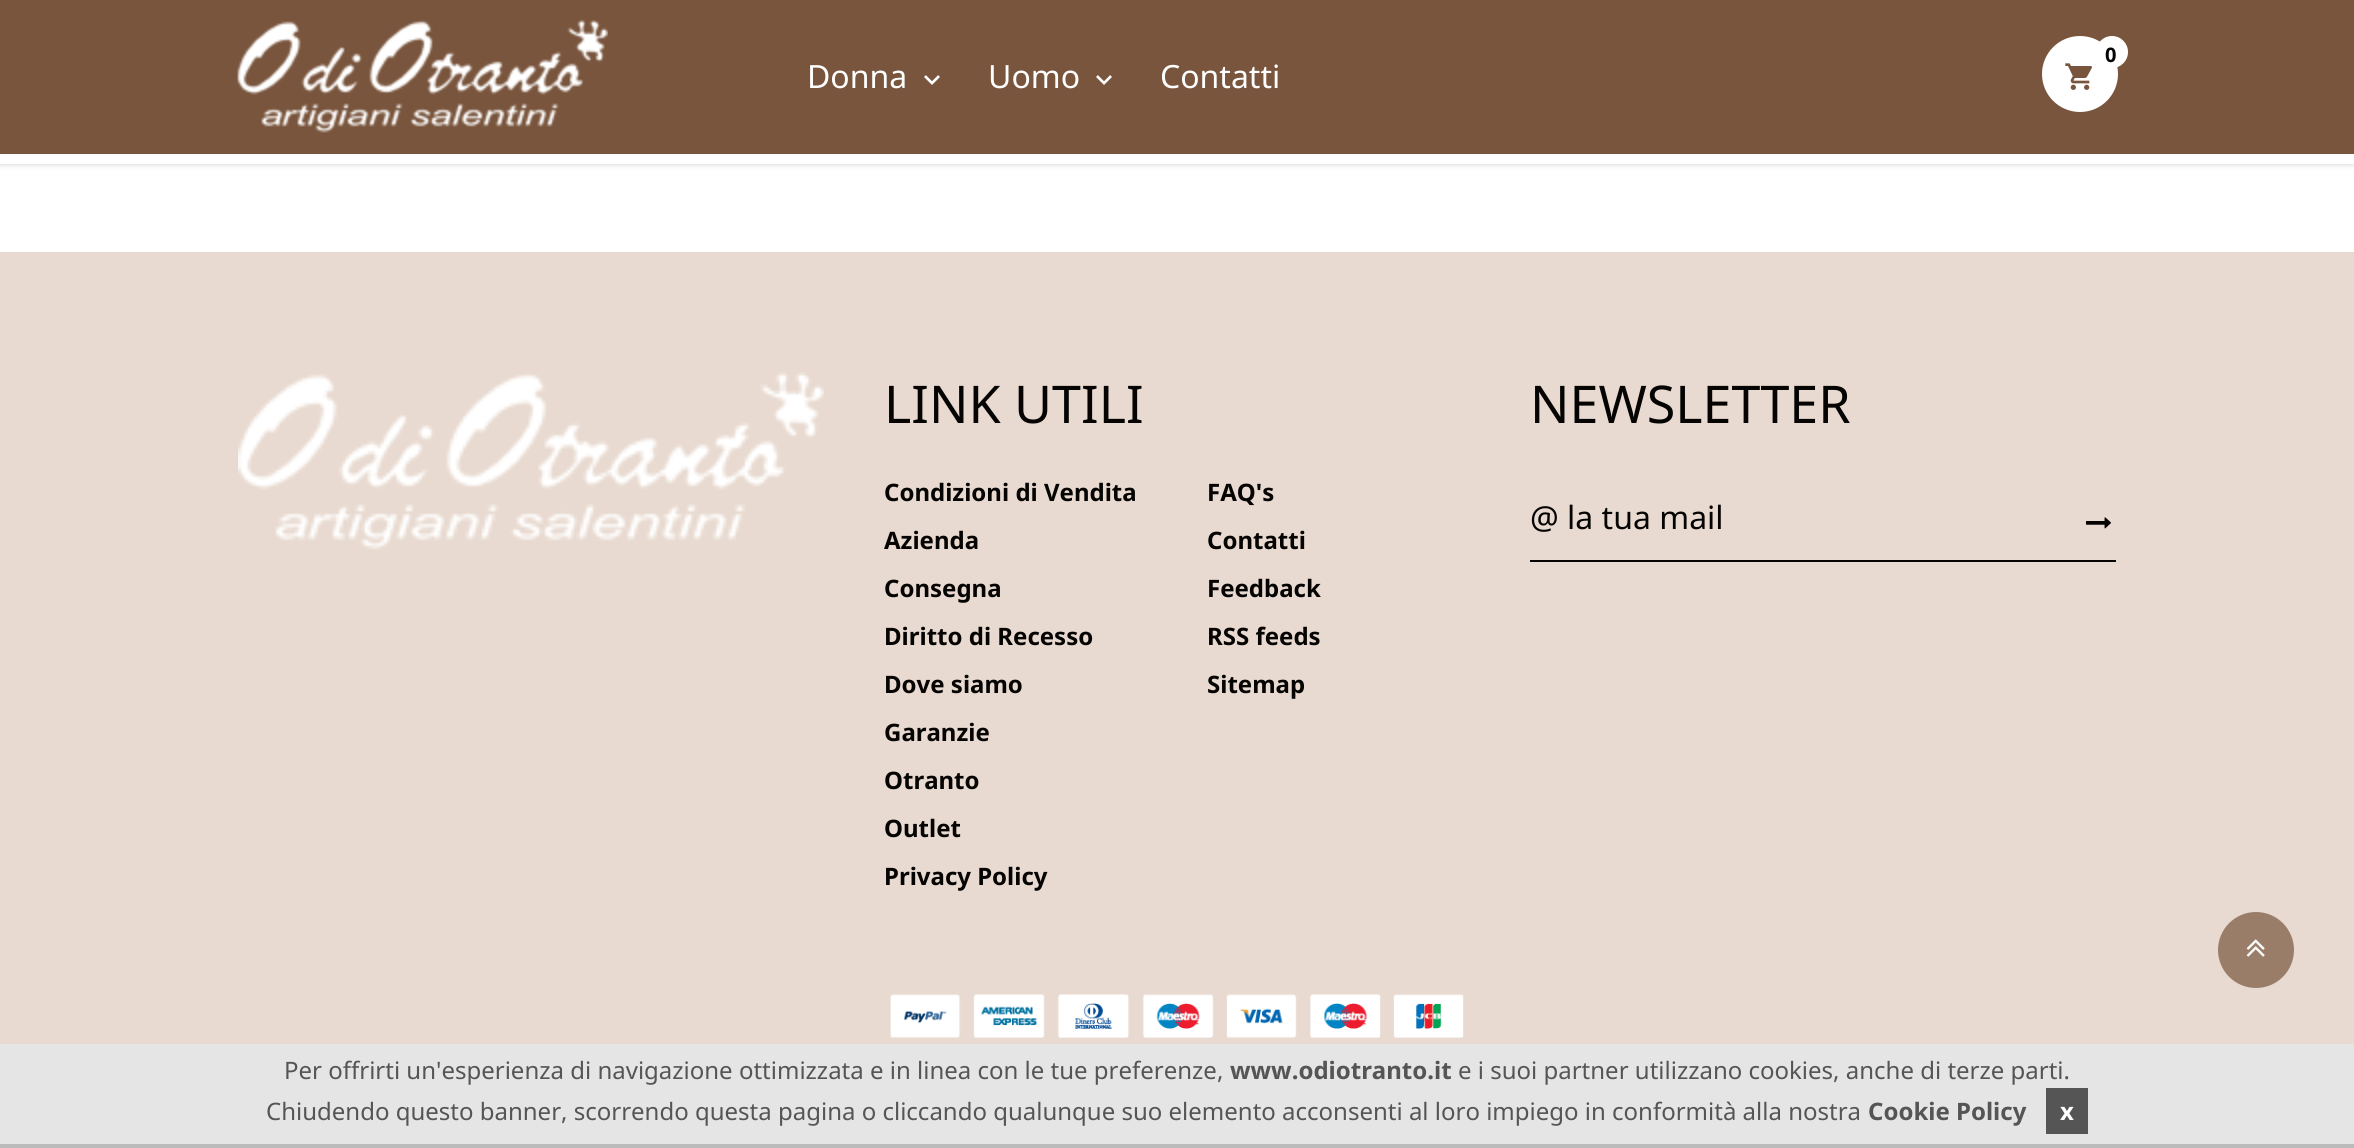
#include <cairo.h>
#include <math.h>
#include <stddef.h>


static void rgb(cairo_t *cr, int r, int g, int b)
{
	cairo_set_source_rgb(cr, r / 255.0, g / 255.0, b / 255.0);
}

static void face(cairo_t *cr, const char *family, double size, int italic, int bold)
{
	cairo_select_font_face(cr, family, italic ? CAIRO_FONT_SLANT_ITALIC : CAIRO_FONT_SLANT_NORMAL,
		bold ? CAIRO_FONT_WEIGHT_BOLD : CAIRO_FONT_WEIGHT_NORMAL);
	cairo_set_font_size(cr, size);
}

static void label(cairo_t *cr, double x, double y, const char *s)
{
	cairo_move_to(cr, x, y);
	cairo_show_text(cr, s);
}

static void rect(cairo_t *cr, double x, double y, double w, double h)
{
	cairo_rectangle(cr, x, y, w, h);
	cairo_fill(cr);
}

static void rrect(cairo_t *cr, double x, double y, double w, double h, double r)
{
	cairo_new_sub_path(cr);
	cairo_arc(cr, x + w - r, y + h - r, r, 0, M_PI / 2);
	cairo_arc(cr, x + r, y + h - r, r, M_PI / 2, M_PI);
	cairo_arc(cr, x + r, y + r, r, M_PI, 1.5 * M_PI);
	cairo_arc(cr, x + w - r, y + r, r, 1.5 * M_PI, 2 * M_PI);
	cairo_close_path(cr);
}

static void soft_shadow(cairo_t *cr, double x, double y, double w, double h, double r, double blur, double alpha)
{
	cairo_push_group_with_content(cr, CAIRO_CONTENT_ALPHA);
	cairo_set_operator(cr, CAIRO_OPERATOR_SOURCE);
	for (int i = 15; i >= -15 && fmin(w, h) + blur * i / 3 > 0; i -= 2) {
		double e = blur * i / 6;
		cairo_set_source_rgba(cr, 0, 0, 0, alpha * erfc((i - 1) / 8.5) / 2);
		rrect(cr, x - e, y - e, w + 2 * e, h + 2 * e, fmax(0, fmin(r + e + blur * .6, fmin(w, h) / 2 + e)));
		cairo_fill(cr);
	}
	cairo_pattern_t *soft = cairo_pop_group(cr);
	cairo_mask(cr, soft);
	cairo_pattern_destroy(soft);
}

static void image(cairo_t *cr, const char *path, double x, double y, double w, double h)
{
	cairo_surface_t *image = cairo_image_surface_create_from_png(path);
	cairo_save(cr);
	cairo_set_source_surface(cr, image, x, y);
	cairo_rectangle(cr, x, y, w, h);
	cairo_fill(cr);
	cairo_restore(cr);
	cairo_surface_destroy(image);
}

static void draw(cairo_t *cr) {
	rgb(cr, 255, 255, 255);
	cairo_paint(cr);
	rgb(cr, 0, 0, 0);
	soft_shadow(cr, 0, 0, 2354, 164, 0, 3, 0.2);
	rgb(cr, 121, 85, 61);
	rect(cr, 0, 0, 2354, 154);
	rgb(cr, 255, 255, 255);
	rect(cr, 0, 154, 2354, 10);
	image(cr, "image0.png", 237, 20, 371, 113);
	cairo_arc(cr, 2080, 74, 38, 0, 2 * M_PI);
	cairo_fill(cr);
	cairo_arc(cr, 2112, 52, 16, 0, 2 * M_PI);
	cairo_fill(cr);
	face(cr, "Noto Sans", 20, 0, 1);
	rgb(cr, 5, 4, 2);
	label(cr, 2105, 62, "0");
	image(cr, "image1.png", 2065, 63, 27, 27);
	face(cr, "Noto Sans", 32, 0, 0);
	rgb(cr, 255, 255, 255);
	label(cr, 807, 88, "Donna");
	image(cr, "image2.png", 924, 75, 16, 10);
	label(cr, 988, 88, "Uomo");
	image(cr, "image2.png", 1096, 75, 16, 10);
	label(cr, 1160, 88, "Contatti");
	rgb(cr, 232, 218, 208);
	rect(cr, 0, 252, 2354, 792);
	image(cr, "image3.png", 238, 372, 586, 178);
	face(cr, "Noto Sans", 52, 0, 0);
	rgb(cr, 5, 4, 2);
	label(cr, 884, 423, "LINK UTILI");
	face(cr, "Noto Sans", 24, 0, 1);
	label(cr, 884, 501, "Condizioni di Vendita");
	label(cr, 884, 549, "Azienda");
	label(cr, 884, 597, "Consegna");
	label(cr, 884, 645, "Diritto di Recesso");
	label(cr, 884, 693, "Dove siamo");
	label(cr, 884, 741, "Garanzie");
	label(cr, 884, 789, "Otranto");
	label(cr, 884, 837, "Outlet");
	label(cr, 884, 885, "Privacy Policy");
	label(cr, 1207, 501, "FAQ's");
	label(cr, 1207, 549, "Contatti");
	label(cr, 1207, 597, "Feedback");
	label(cr, 1207, 645, "RSS feeds");
	label(cr, 1207, 693, "Sitemap");
	face(cr, "Noto Sans", 52, 0, 0);
	label(cr, 1530, 423, "NEWSLETTER");
	rect(cr, 1530, 560, 586, 2);
	face(cr, "Noto Sans", 32, 0, 0);
	label(cr, 1530, 529, "@ la tua mail");
	image(cr, "image4.png", 2086, 517, 25, 12);
	image(cr, "image5.png", 890, 994, 574, 44);
	rgb(cr, 154, 125, 105);
	cairo_new_path(cr);
	cairo_move_to(cr, 2256, 988);
	cairo_curve_to(cr, 2235, 988, 2218, 971, 2218, 950);
	cairo_curve_to(cr, 2218, 929, 2235, 912, 2256, 912);
	cairo_curve_to(cr, 2277, 912, 2294, 929, 2294, 950);
	cairo_curve_to(cr, 2294, 971, 2277, 988, 2256, 988);
	cairo_close_path(cr);
	cairo_fill(cr);
	image(cr, "image6.png", 2246, 939, 19, 18);
	rgb(cr, 229, 229, 229);
	rect(cr, 0, 1044, 2354, 100);
	rgb(cr, 187, 187, 187);
	rect(cr, 0, 1144, 2354, 4);
	face(cr, "Noto Sans", 24, 0, 0);
	rgb(cr, 85, 85, 85);
	label(cr, 284, 1079, "Per offrirti un'esperienza di navigazione ottimizzata e in linea con le tue preferenze,");
	face(cr, "Noto Sans", 24, 0, 1);
	label(cr, 1230, 1079, "www.odiotranto.it");
	face(cr, "Noto Sans", 24, 0, 0);
	label(cr, 1458, 1079, "e i suoi partner utilizzano cookies, anche di terze parti.");
	label(cr, 266, 1120, "Chiudendo questo banner, scorrendo questa pagina o cliccando qualunque suo elemento acconsenti al loro impiego in conformità alla nostra");
	face(cr, "Noto Sans", 24, 0, 1);
	label(cr, 1868, 1120, "Cookie Policy");
	rect(cr, 2046, 1088, 42, 46);
	rgb(cr, 255, 255, 255);
	label(cr, 2060, 1120, "x");
}

int main(void) {
	cairo_surface_t *surface = cairo_image_surface_create(CAIRO_FORMAT_RGB24, 2354, 1148);
	cairo_t *cr = cairo_create(surface);
	cairo_font_options_t *options = cairo_font_options_create();
	cairo_font_options_set_hint_metrics(options, CAIRO_HINT_METRICS_OFF);
	cairo_font_options_set_hint_style(options, CAIRO_HINT_STYLE_NONE);
	cairo_set_font_options(cr, options);
	cairo_set_miter_limit(cr, 4);
	draw(cr);
	cairo_surface_write_to_png(surface, "render.png");
	cairo_font_options_destroy(options);
	cairo_destroy(cr);
	cairo_surface_destroy(surface);
	return 0;
}
